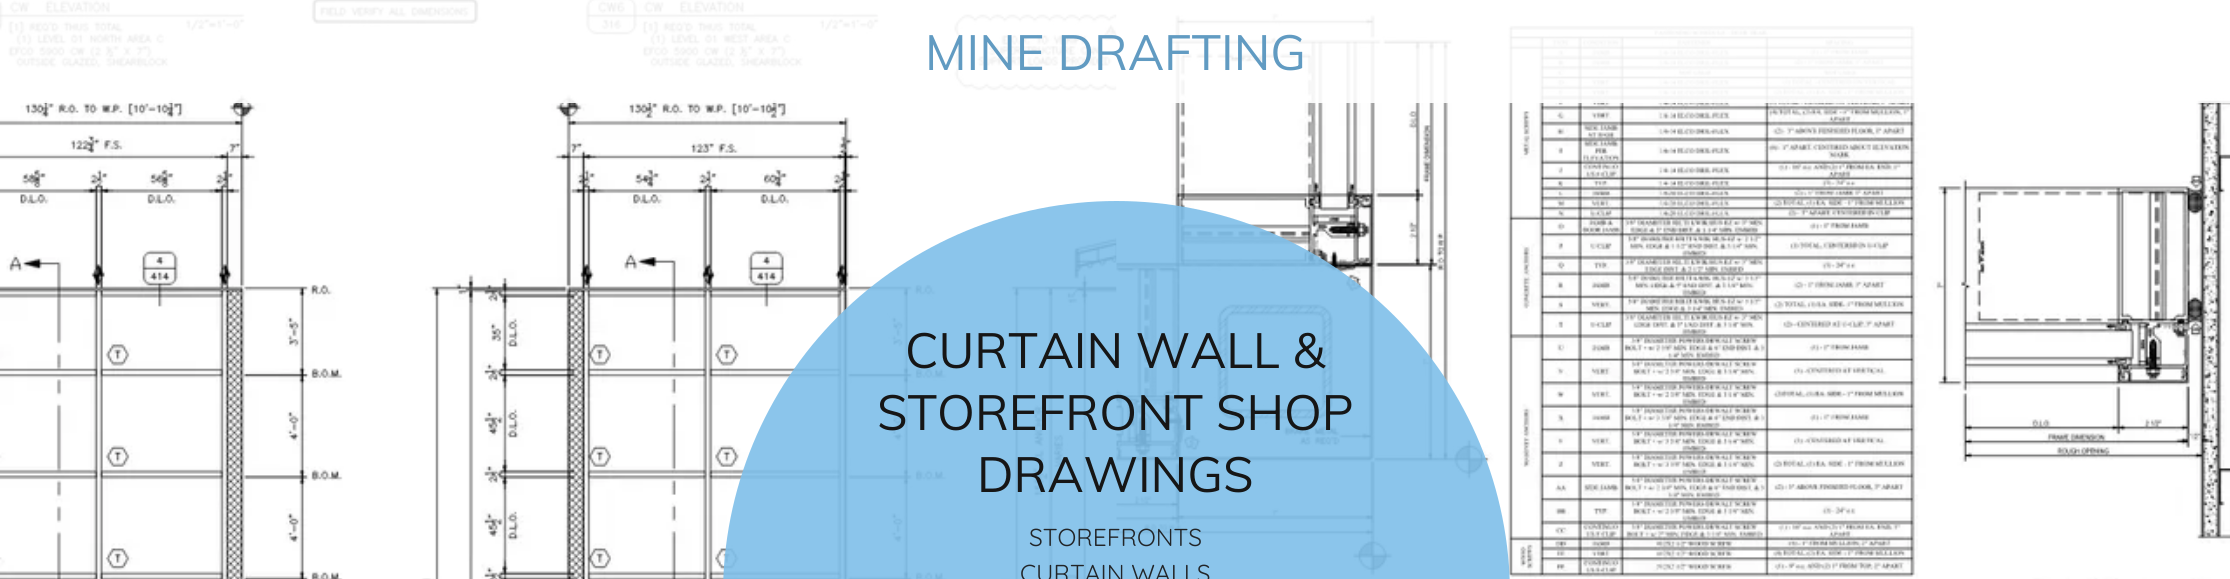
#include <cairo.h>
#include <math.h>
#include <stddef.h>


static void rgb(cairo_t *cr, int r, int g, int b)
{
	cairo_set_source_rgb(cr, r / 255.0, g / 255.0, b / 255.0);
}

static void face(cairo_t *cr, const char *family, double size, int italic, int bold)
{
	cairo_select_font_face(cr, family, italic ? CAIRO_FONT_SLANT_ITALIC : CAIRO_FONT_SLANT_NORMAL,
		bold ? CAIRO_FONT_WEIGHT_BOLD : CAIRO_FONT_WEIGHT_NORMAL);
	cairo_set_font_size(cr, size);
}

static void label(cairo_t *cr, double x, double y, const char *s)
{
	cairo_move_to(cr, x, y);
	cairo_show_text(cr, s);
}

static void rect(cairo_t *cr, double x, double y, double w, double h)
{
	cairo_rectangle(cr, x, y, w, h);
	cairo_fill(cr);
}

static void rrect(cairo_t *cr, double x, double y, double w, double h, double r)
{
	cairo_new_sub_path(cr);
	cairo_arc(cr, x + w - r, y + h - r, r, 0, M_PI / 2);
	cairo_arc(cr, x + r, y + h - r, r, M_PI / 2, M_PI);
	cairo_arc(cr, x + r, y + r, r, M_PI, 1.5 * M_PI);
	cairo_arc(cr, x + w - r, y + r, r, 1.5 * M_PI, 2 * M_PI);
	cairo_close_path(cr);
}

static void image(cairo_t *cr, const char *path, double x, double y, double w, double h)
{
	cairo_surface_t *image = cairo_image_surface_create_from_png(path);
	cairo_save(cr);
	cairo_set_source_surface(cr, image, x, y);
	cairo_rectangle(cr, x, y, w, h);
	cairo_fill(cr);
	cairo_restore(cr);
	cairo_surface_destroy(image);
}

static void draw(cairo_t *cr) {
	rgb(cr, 255, 255, 255);
	cairo_paint(cr);
	image(cr, "image0.png", 0, 0, 1117, 579);
	image(cr, "image1.png", 1116, 13, 1114, 566);
	cairo_set_source_rgba(cr, 1, 1, 1, 0.9);
	rect(cr, 0, 0, 2230, 103);
	face(cr, "Muli", 49, 0, 0);
	rgb(cr, 97, 155, 194);
	label(cr, 925, 70, "MINE DRAFTING");
	cairo_set_source_rgba(cr, 0.498, 0.749, 0.914, 0.9);
	rrect(cr, 723, 201, 787, 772, 393.5);
	cairo_fill(cr);
	rgb(cr, 22, 22, 22);
	label(cr, 905, 368, "CURTAIN WALL &");
	label(cr, 877, 430, "STOREFRONT SHOP");
	label(cr, 977, 492, "DRAWINGS");
	face(cr, "Quicksand", 24.5, 0, 0);
	rgb(cr, 34, 37, 40);
	label(cr, 1029, 546, "STOREFRONTS");
	label(cr, 1020, 582, "CURTAIN WALLS");
}

int main(void) {
	cairo_surface_t *surface = cairo_image_surface_create(CAIRO_FORMAT_RGB24, 2230, 579);
	cairo_t *cr = cairo_create(surface);
	cairo_font_options_t *options = cairo_font_options_create();
	cairo_font_options_set_hint_metrics(options, CAIRO_HINT_METRICS_OFF);
	cairo_font_options_set_hint_style(options, CAIRO_HINT_STYLE_NONE);
	cairo_set_font_options(cr, options);
	cairo_set_miter_limit(cr, 4);
	draw(cr);
	cairo_surface_write_to_png(surface, "render.png");
	cairo_font_options_destroy(options);
	cairo_destroy(cr);
	cairo_surface_destroy(surface);
	return 0;
}
